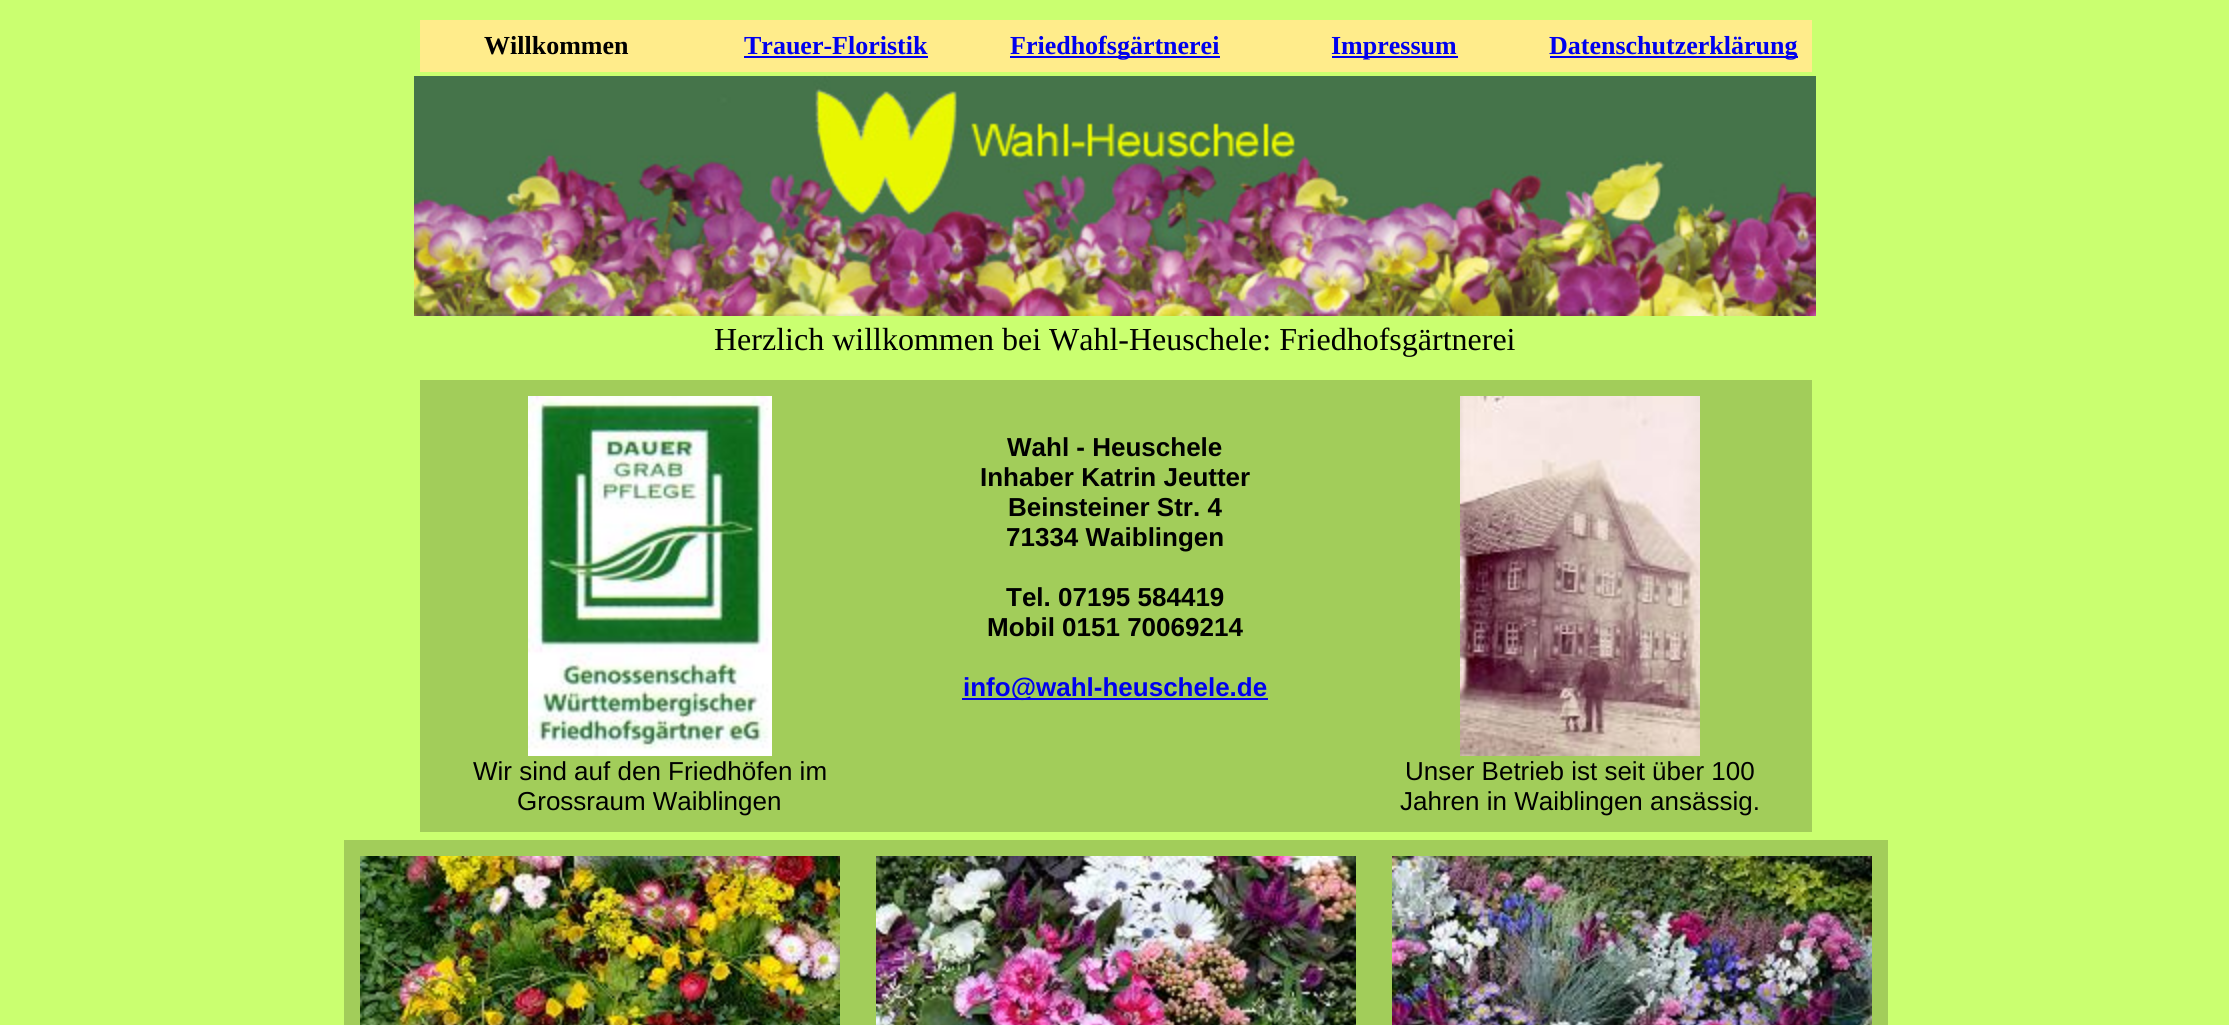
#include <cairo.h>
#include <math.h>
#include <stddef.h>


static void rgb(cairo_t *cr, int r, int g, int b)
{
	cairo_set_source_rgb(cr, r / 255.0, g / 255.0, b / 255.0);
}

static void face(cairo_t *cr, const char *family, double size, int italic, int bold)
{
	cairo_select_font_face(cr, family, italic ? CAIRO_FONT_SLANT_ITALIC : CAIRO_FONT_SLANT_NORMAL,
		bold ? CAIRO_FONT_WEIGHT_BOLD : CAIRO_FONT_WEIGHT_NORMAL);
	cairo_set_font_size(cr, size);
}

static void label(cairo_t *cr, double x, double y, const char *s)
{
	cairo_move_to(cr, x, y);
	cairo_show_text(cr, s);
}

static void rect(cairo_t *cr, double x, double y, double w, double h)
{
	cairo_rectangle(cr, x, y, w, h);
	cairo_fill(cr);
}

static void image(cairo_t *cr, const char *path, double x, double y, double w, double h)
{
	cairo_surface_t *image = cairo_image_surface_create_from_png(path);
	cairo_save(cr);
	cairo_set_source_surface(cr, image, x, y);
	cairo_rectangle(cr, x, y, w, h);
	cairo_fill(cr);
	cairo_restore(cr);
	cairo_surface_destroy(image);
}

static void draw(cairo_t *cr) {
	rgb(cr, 202, 255, 112);
	cairo_paint(cr);
	rgb(cr, 255, 236, 139);
	rect(cr, 420, 20, 1392, 52);
	face(cr, "Liberation Serif", 26, 0, 1);
	rgb(cr, 0, 0, 0);
	label(cr, 484, 54, "Willkommen");
	rgb(cr, 0, 0, 238);
	label(cr, 744, 54, "Trauer-Floristik");
	rect(cr, 744, 56, 184, 2);
	rect(cr, 1010, 56, 210, 2);
	label(cr, 1010, 54, "Friedhofsgärtnerei");
	rect(cr, 1332, 56, 126, 2);
	label(cr, 1331, 54, "Impressum");
	rect(cr, 1550, 56, 248, 2);
	label(cr, 1549, 54, "Datenschutzerklärung");
	image(cr, "image0.png", 414, 76, 1402, 240);
	face(cr, "Liberation Serif", 32, 0, 0);
	rgb(cr, 0, 0, 0);
	label(cr, 714, 350, "Herzlich willkommen bei Wahl-Heuschele: Friedhofsgärtnerei");
	rgb(cr, 162, 205, 90);
	rect(cr, 420, 380, 1392, 452);
	face(cr, "Liberation Sans", 26, 0, 1);
	rgb(cr, 0, 0, 0);
	label(cr, 1007, 456, "Wahl - Heuschele");
	label(cr, 980, 486, "Inhaber Katrin Jeutter");
	label(cr, 1008, 516, "Beinsteiner Str. 4");
	label(cr, 1006, 546, "71334 Waiblingen");
	label(cr, 1006, 606, "Tel. 07195 584419");
	label(cr, 987, 636, "Mobil 0151 70069214");
	rgb(cr, 0, 0, 238);
	rect(cr, 962, 698, 306, 2);
	label(cr, 963, 696, "info@wahl-heuschele.de");
	image(cr, "image1.png", 528, 396, 244, 360);
	face(cr, "Liberation Sans", 26, 0, 0);
	rgb(cr, 0, 0, 0);
	label(cr, 473, 780, "Wir sind auf den Friedhöfen im");
	label(cr, 517, 810, "Grossraum Waiblingen");
	image(cr, "image2.png", 1460, 396, 240, 360);
	label(cr, 1405, 780, "Unser Betrieb ist seit über 100");
	label(cr, 1400, 810, "Jahren in Waiblingen ansässig.");
	rgb(cr, 162, 205, 90);
	rect(cr, 344, 840, 1544, 185);
	image(cr, "image3.png", 360, 856, 480, 169);
	image(cr, "image4.png", 876, 856, 480, 169);
	image(cr, "image5.png", 1392, 856, 480, 169);
}

int main(void) {
	cairo_surface_t *surface = cairo_image_surface_create(CAIRO_FORMAT_RGB24, 2229, 1025);
	cairo_t *cr = cairo_create(surface);
	cairo_font_options_t *options = cairo_font_options_create();
	cairo_font_options_set_hint_metrics(options, CAIRO_HINT_METRICS_OFF);
	cairo_font_options_set_hint_style(options, CAIRO_HINT_STYLE_NONE);
	cairo_set_font_options(cr, options);
	cairo_set_miter_limit(cr, 4);
	draw(cr);
	cairo_surface_write_to_png(surface, "render.png");
	cairo_font_options_destroy(options);
	cairo_destroy(cr);
	cairo_surface_destroy(surface);
	return 0;
}
